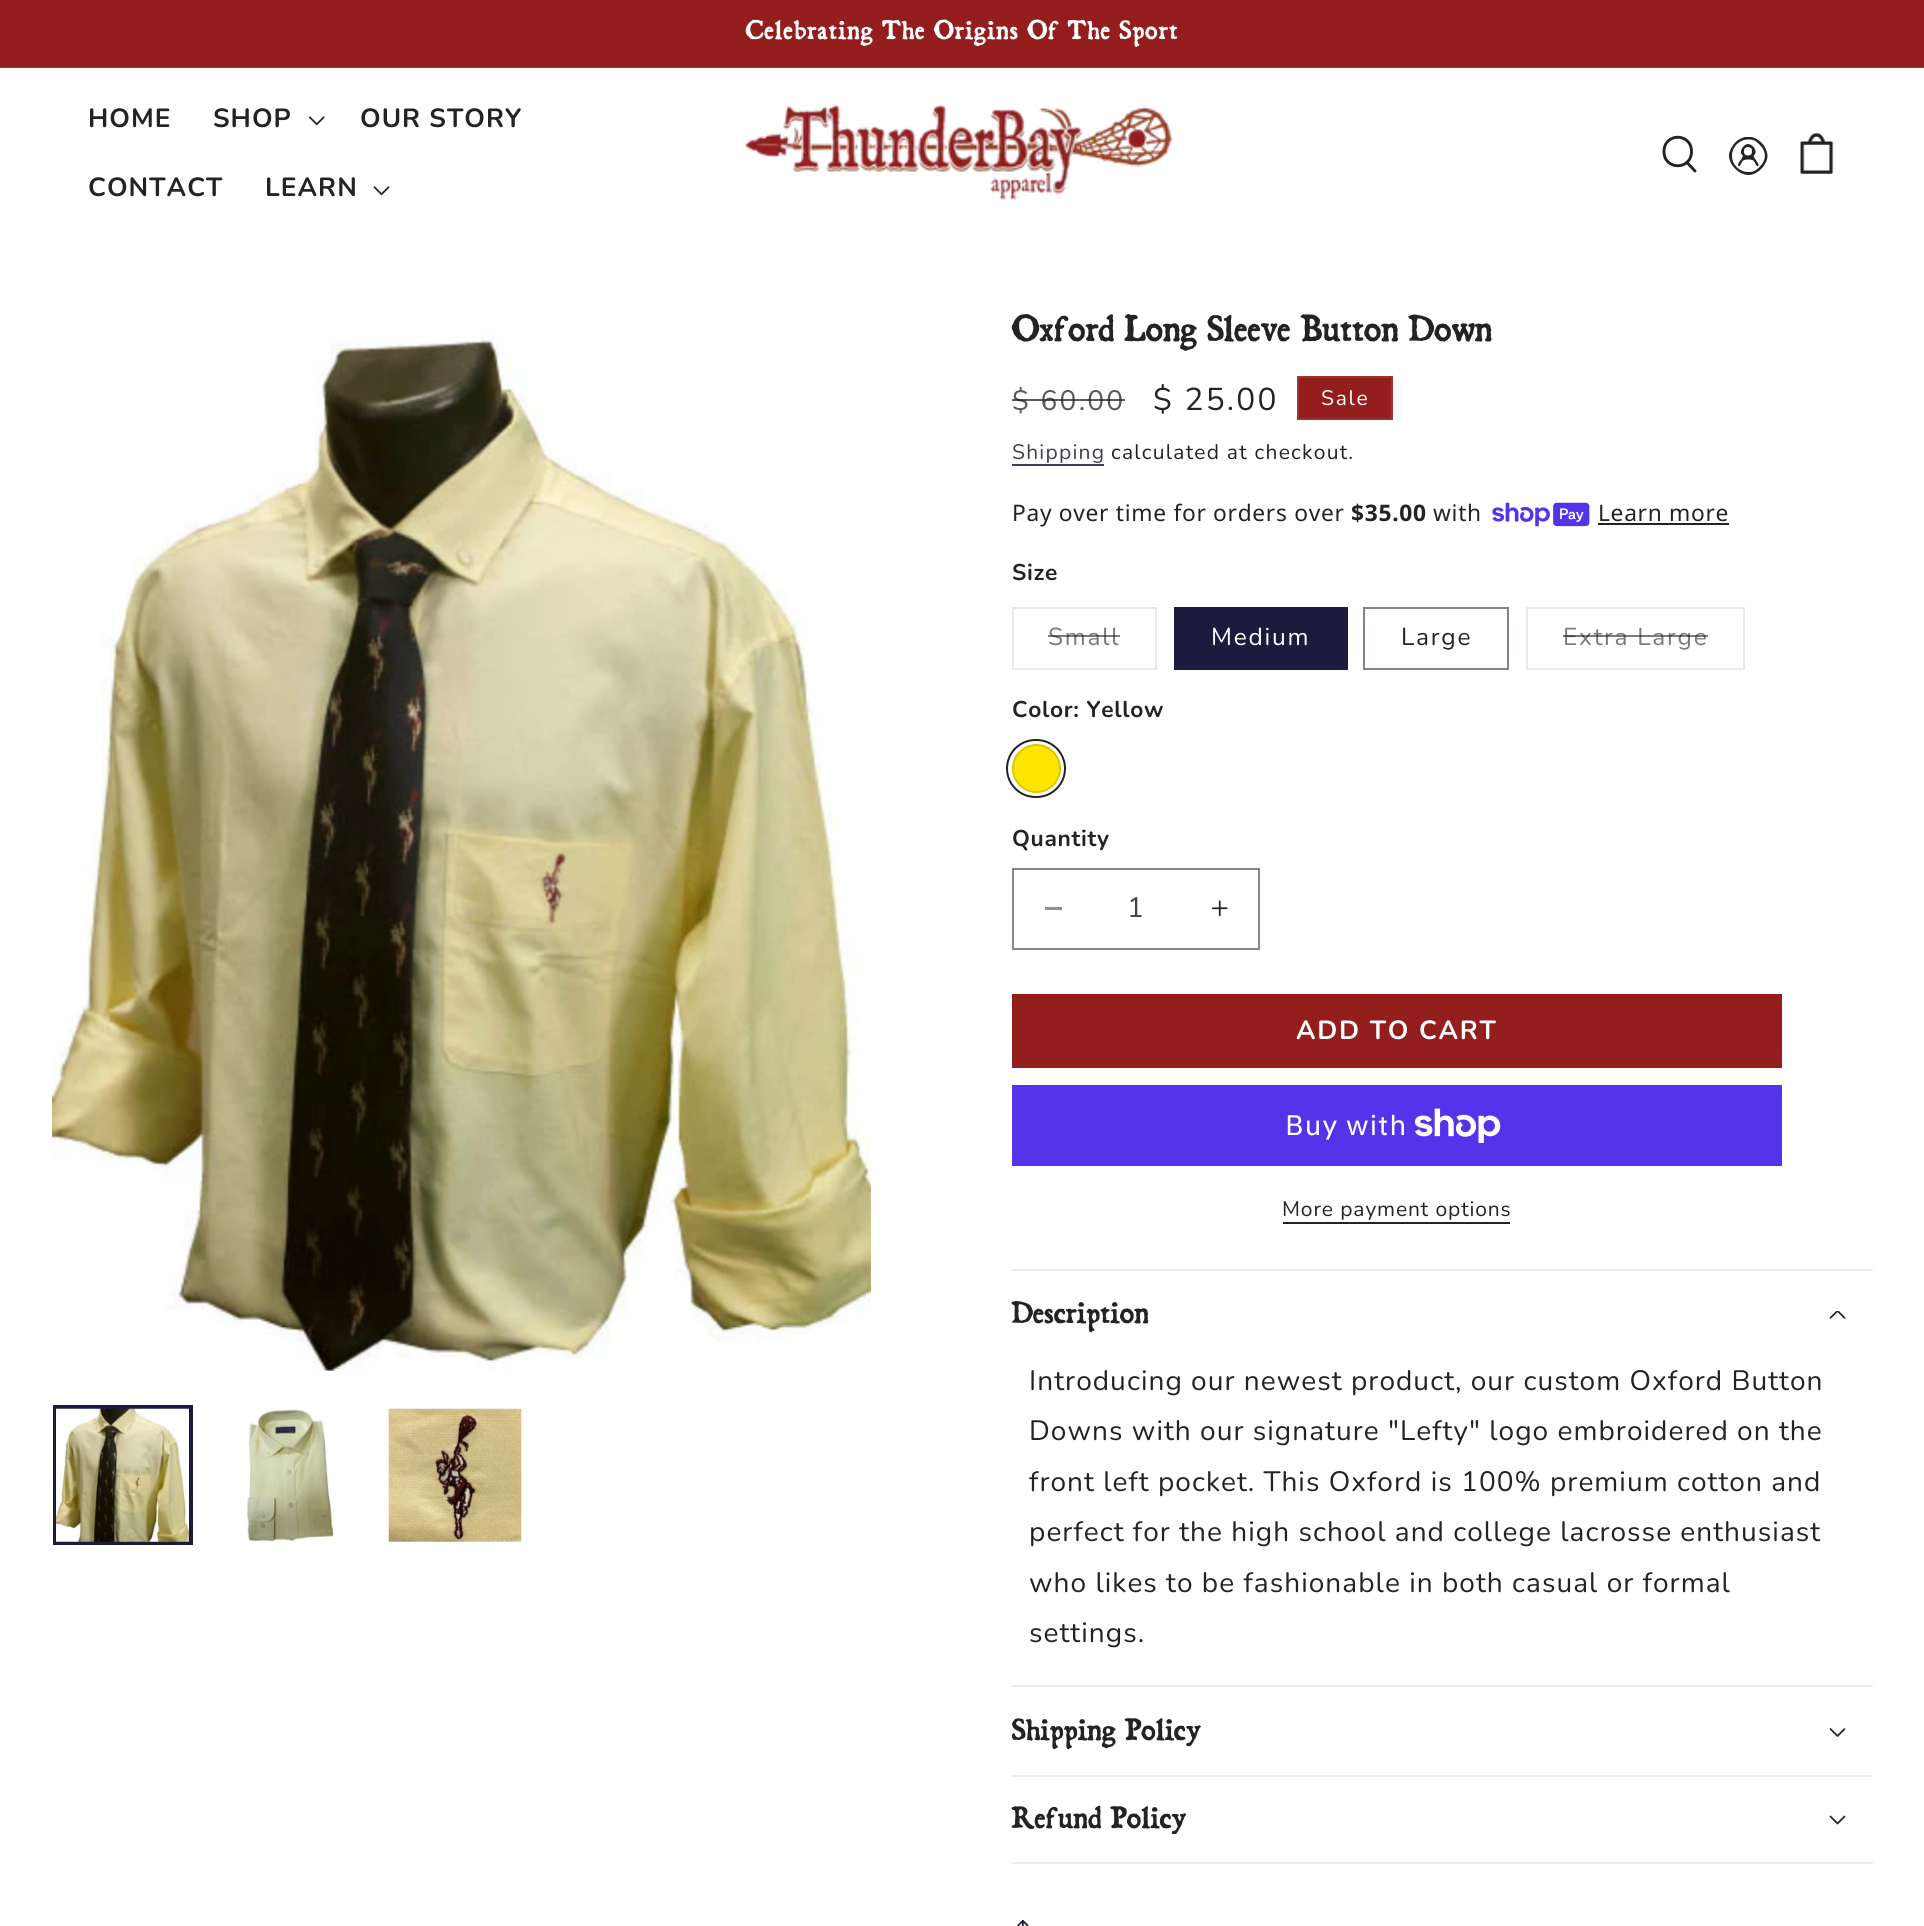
#include <cairo.h>
#include <math.h>
#include <stddef.h>


static void rgb(cairo_t *cr, int r, int g, int b)
{
	cairo_set_source_rgb(cr, r / 255.0, g / 255.0, b / 255.0);
}

static void face(cairo_t *cr, const char *family, double size, int italic, int bold)
{
	cairo_select_font_face(cr, family, italic ? CAIRO_FONT_SLANT_ITALIC : CAIRO_FONT_SLANT_NORMAL,
		bold ? CAIRO_FONT_WEIGHT_BOLD : CAIRO_FONT_WEIGHT_NORMAL);
	cairo_set_font_size(cr, size);
}

static void label(cairo_t *cr, double x, double y, const char *s)
{
	cairo_move_to(cr, x, y);
	cairo_show_text(cr, s);
}

static void tracked(cairo_t *cr, double x, double y, const char *s, double letter, double word)
{
	cairo_move_to(cr, x, y);
	while (*s) {
		char ch[5] = {0};
		int n = 0;
		do ch[n++] = *s++; while ((*s & 0xC0) == 0x80);
		cairo_show_text(cr, ch);
		cairo_rel_move_to(cr, letter + word * (*ch == ' '), 0);
	}
}

static void rect(cairo_t *cr, double x, double y, double w, double h)
{
	cairo_rectangle(cr, x, y, w, h);
	cairo_fill(cr);
}

static void rrect(cairo_t *cr, double x, double y, double w, double h, double r)
{
	cairo_new_sub_path(cr);
	cairo_arc(cr, x + w - r, y + h - r, r, 0, M_PI / 2);
	cairo_arc(cr, x + r, y + h - r, r, M_PI / 2, M_PI);
	cairo_arc(cr, x + r, y + r, r, M_PI, 1.5 * M_PI);
	cairo_arc(cr, x + w - r, y + r, r, 1.5 * M_PI, 2 * M_PI);
	cairo_close_path(cr);
}

static void image(cairo_t *cr, const char *path, double x, double y, double w, double h)
{
	cairo_surface_t *image = cairo_image_surface_create_from_png(path);
	cairo_save(cr);
	cairo_set_source_surface(cr, image, x, y);
	cairo_rectangle(cr, x, y, w, h);
	cairo_fill(cr);
	cairo_restore(cr);
	cairo_surface_destroy(image);
}

static void draw(cairo_t *cr) {
	rgb(cr, 255, 255, 255);
	cairo_paint(cr);
	rgb(cr, 148, 29, 29);
	rect(cr, 0, 0, 1924, 67);
	rgb(cr, 157, 47, 47);
	rect(cr, 0, 67, 1924, 1);
	face(cr, "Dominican", 22.75, 0, 1);
	rgb(cr, 255, 255, 255);
	tracked(cr, 746, 39, "Celebrating The Origins Of The Sport", 1.75, 0);
	face(cr, "Nunito", 26.25, 0, 1);
	rgb(cr, 35, 35, 35);
	tracked(cr, 88, 127, "HOME", 1.05, 0);
	tracked(cr, 213, 127, "SHOP", 1.05, 0);
	image(cr, "image0.png", 308, 116, 17, 10);
	tracked(cr, 360, 127, "OUR STORY", 1.05, 0);
	tracked(cr, 88, 196, "CONTACT", 1.05, 0);
	tracked(cr, 265, 196, "LEARN", 1.05, 0);
	image(cr, "image1.png", 373, 186, 17, 10);
	image(cr, "image2.png", 745, 104, 428, 96);
	cairo_new_path(cr);
	cairo_move_to(cr, 1691.5, 151.5);
	cairo_curve_to(cr, 1691.5, 170.5, 1664, 170.5, 1664, 151.5);
	cairo_curve_to(cr, 1664, 132.5, 1691.5, 132.5, 1691.5, 151.5);
	cairo_close_path(cr);
	cairo_set_line_width(cr, 2.9);
	cairo_stroke(cr);
	cairo_new_path(cr);
	cairo_move_to(cr, 1687, 162.5);
	cairo_line_to(cr, 1695, 171);
	cairo_set_line_cap(cr, CAIRO_LINE_CAP_ROUND);
	cairo_stroke(cr);
	image(cr, "image3.png", 1729, 137, 39, 38);
	image(cr, "image4.png", 1800, 133, 34, 41);
	image(cr, "image5.png", 52, 335, 819, 1036);
	cairo_rectangle(cr, 55, 1407, 136, 136);
	rgb(cr, 28, 27, 61);
	cairo_set_line_width(cr, 4);
	cairo_set_line_cap(cr, CAIRO_LINE_CAP_BUTT);
	cairo_stroke(cr);
	image(cr, "image6.png", 56, 1408, 133, 134);
	image(cr, "image7.png", 246, 1409, 89, 133);
	image(cr, "image8.png", 388, 1408, 134, 134);
	face(cr, "Dominican", 31.5, 0, 1);
	rgb(cr, 35, 35, 35);
	tracked(cr, 1012, 341, "Oxford Long Sleeve Button Down", 1.05, 0);
	face(cr, "Nunito", 28, 0, 0);
	rgb(cr, 90, 90, 90);
	tracked(cr, 1012, 410, "$ 60.00", 2.25, 0);
	cairo_set_source_rgba(cr, 0.137, 0.137, 0.137, 0.75);
	rect(cr, 1012, 399, 113, 2);
	face(cr, "Nunito", 31.5, 0, 0);
	rgb(cr, 35, 35, 35);
	tracked(cr, 1153, 410, "$ 25.00", 2.25, 0);
	rgb(cr, 148, 29, 29);
	cairo_rectangle(cr, 1298, 377, 94, 42);
	cairo_fill_preserve(cr);
	rgb(cr, 159, 52, 52);
	cairo_set_line_width(cr, 2);
	cairo_stroke(cr);
	face(cr, "Nunito", 21, 0, 0);
	rgb(cr, 255, 255, 255);
	tracked(cr, 1321, 405, "Sale", 1.75, 0);
	rgb(cr, 62, 61, 90);
	tracked(cr, 1012, 459, "Shipping", 1.25, 0);
	rect(cr, 1012, 464, 92, 2);
	rgb(cr, 35, 35, 35);
	tracked(cr, 1111, 459, "calculated at checkout.", 1.25, 0);
	face(cr, "Noto Sans", 22.75, 0, 0);
	tracked(cr, 1012, 521, "Pay over time for orders over", 0.7, 0);
	face(cr, "Noto Sans", 22.75, 0, 1);
	tracked(cr, 1351, 521, "$35.00", 0.7, 0);
	face(cr, "Noto Sans", 22.75, 0, 0);
	tracked(cr, 1433, 521, "with", 0.7, 0);
	image(cr, "image9.png", 1492, 502, 98, 25);
	tracked(cr, 1598, 521, "Learn more", 0.7, 0);
	rect(cr, 1598, 523, 131, 2);
	face(cr, "Nunito", 22.75, 0, 1);
	tracked(cr, 1012, 580, "Size", 0.7, 0);
	cairo_rectangle(cr, 1013, 608, 143, 61);
	rgb(cr, 233, 233, 233);
	cairo_stroke(cr);
	face(cr, "Nunito", 24.5, 0, 0);
	rgb(cr, 123, 123, 123);
	tracked(cr, 1048, 645, "Small", 1.75, 0);
	cairo_set_source_rgba(cr, 0.137, 0.137, 0.137, 0.6);
	rect(cr, 1048, 635, 72, 2);
	rgb(cr, 28, 27, 61);
	rect(cr, 1174, 607, 174, 63);
	rgb(cr, 255, 255, 255);
	tracked(cr, 1211, 645, "Medium", 1.75, 0);
	cairo_rectangle(cr, 1364, 608, 144, 61);
	rgb(cr, 130, 130, 148);
	cairo_stroke(cr);
	rgb(cr, 35, 35, 35);
	tracked(cr, 1401, 645, "Large", 1.75, 0);
	cairo_rectangle(cr, 1527, 608, 217, 61);
	rgb(cr, 233, 233, 233);
	cairo_stroke(cr);
	rgb(cr, 123, 123, 123);
	tracked(cr, 1563, 645, "Extra Large", 1.75, 0);
	cairo_set_source_rgba(cr, 0.137, 0.137, 0.137, 0.6);
	rect(cr, 1563, 635, 145, 2);
	face(cr, "Nunito", 22.75, 0, 1);
	rgb(cr, 35, 35, 35);
	tracked(cr, 1012, 717, "Color: Yellow", 0.7, 0);
	rgb(cr, 255, 229, 0);
	cairo_new_path(cr);
	cairo_arc(cr, 1036.5, 768.5, 24.5, 0, 2 * M_PI);
	cairo_fill(cr);
	cairo_arc(cr, 1036.5, 768.5, 23.5, 0, 2 * M_PI);
	cairo_set_source_rgba(cr, 0.137, 0.137, 0.137, 0.15);
	cairo_stroke(cr);
	rrect(cr, 1007, 740, 58, 57, 28.5);
	rgb(cr, 35, 35, 35);
	cairo_stroke(cr);
	tracked(cr, 1012, 846, "Quantity", 0.7, 0);
	rgb(cr, 145, 145, 145);
	rect(cr, 1045, 907, 17, 3);
	image(cr, "image10.png", 1211, 900, 17, 17);
	cairo_rectangle(cr, 1013, 869, 246, 80);
	rgb(cr, 134, 134, 134);
	cairo_stroke(cr);
	face(cr, "Nunito", 28, 0, 0);
	rgb(cr, 68, 68, 68);
	label(cr, 1127, 917, "1");
	rgb(cr, 148, 29, 29);
	rect(cr, 1012, 994, 770, 74);
	face(cr, "Nunito", 26.25, 0, 1);
	rgb(cr, 255, 255, 255);
	tracked(cr, 1296, 1039, "ADD TO CART", 1.75, 0);
	rgb(cr, 84, 51, 235);
	rect(cr, 1012, 1085, 770, 81);
	face(cr, "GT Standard", 28, 0, 0);
	rgb(cr, 255, 255, 255);
	tracked(cr, 1285, 1135, "Buy with", 1.05, 0);
	image(cr, "image11.png", 1415, 1108, 86, 35);
	face(cr, "Nunito", 21, 0, 0);
	rgb(cr, 35, 35, 35);
	tracked(cr, 1282, 1216, "More payment options", 0.9, 0);
	rect(cr, 1283, 1222, 227, 2);
	rgb(cr, 237, 237, 237);
	rect(cr, 1012, 1269, 861, 2);
	rect(cr, 1012, 1685, 861, 2);
	face(cr, "Dominican", 26.25, 0, 1);
	rgb(cr, 35, 35, 35);
	tracked(cr, 1012, 1323, "Description", 1.05, 0);
	image(cr, "image12.png", 1829, 1311, 17, 8);
	face(cr, "Nunito", 28, 0, 0);
	tracked(cr, 1029, 1390, "Introducing our newest product, our custom Oxford Button", 1.05, 0);
	tracked(cr, 1029, 1440, "Downs with our signature \"Lefty\" logo embroidered on the", 1.05, 0);
	tracked(cr, 1029, 1491, "front left pocket. This Oxford is 100% premium cotton and", 1.05, 0);
	tracked(cr, 1029, 1541, "perfect for the high school and college lacrosse enthusiast", 1.05, 0);
	tracked(cr, 1029, 1592, "who likes to be fashionable in both casual or formal", 1.05, 0);
	tracked(cr, 1029, 1642, "settings.", 1.05, 0);
	rgb(cr, 237, 237, 237);
	rect(cr, 1012, 1775, 861, 2);
	face(cr, "Dominican", 26.25, 0, 1);
	rgb(cr, 35, 35, 35);
	tracked(cr, 1012, 1740, "Shipping Policy", 1.05, 0);
	image(cr, "image13.png", 1829, 1728, 17, 9);
	rgb(cr, 237, 237, 237);
	rect(cr, 1012, 1862, 861, 2);
	rgb(cr, 35, 35, 35);
	tracked(cr, 1012, 1828, "Refund Policy", 1.05, 0);
	image(cr, "image14.png", 1829, 1815, 17, 10);
	image(cr, "image15.png", 1017, 1920, 12, 6);
}

int main(void) {
	cairo_surface_t *surface = cairo_image_surface_create(CAIRO_FORMAT_RGB24, 1924, 1926);
	cairo_t *cr = cairo_create(surface);
	cairo_font_options_t *options = cairo_font_options_create();
	cairo_font_options_set_hint_metrics(options, CAIRO_HINT_METRICS_OFF);
	cairo_font_options_set_hint_style(options, CAIRO_HINT_STYLE_NONE);
	cairo_set_font_options(cr, options);
	cairo_set_miter_limit(cr, 4);
	draw(cr);
	cairo_surface_write_to_png(surface, "render.png");
	cairo_font_options_destroy(options);
	cairo_destroy(cr);
	cairo_surface_destroy(surface);
	return 0;
}
